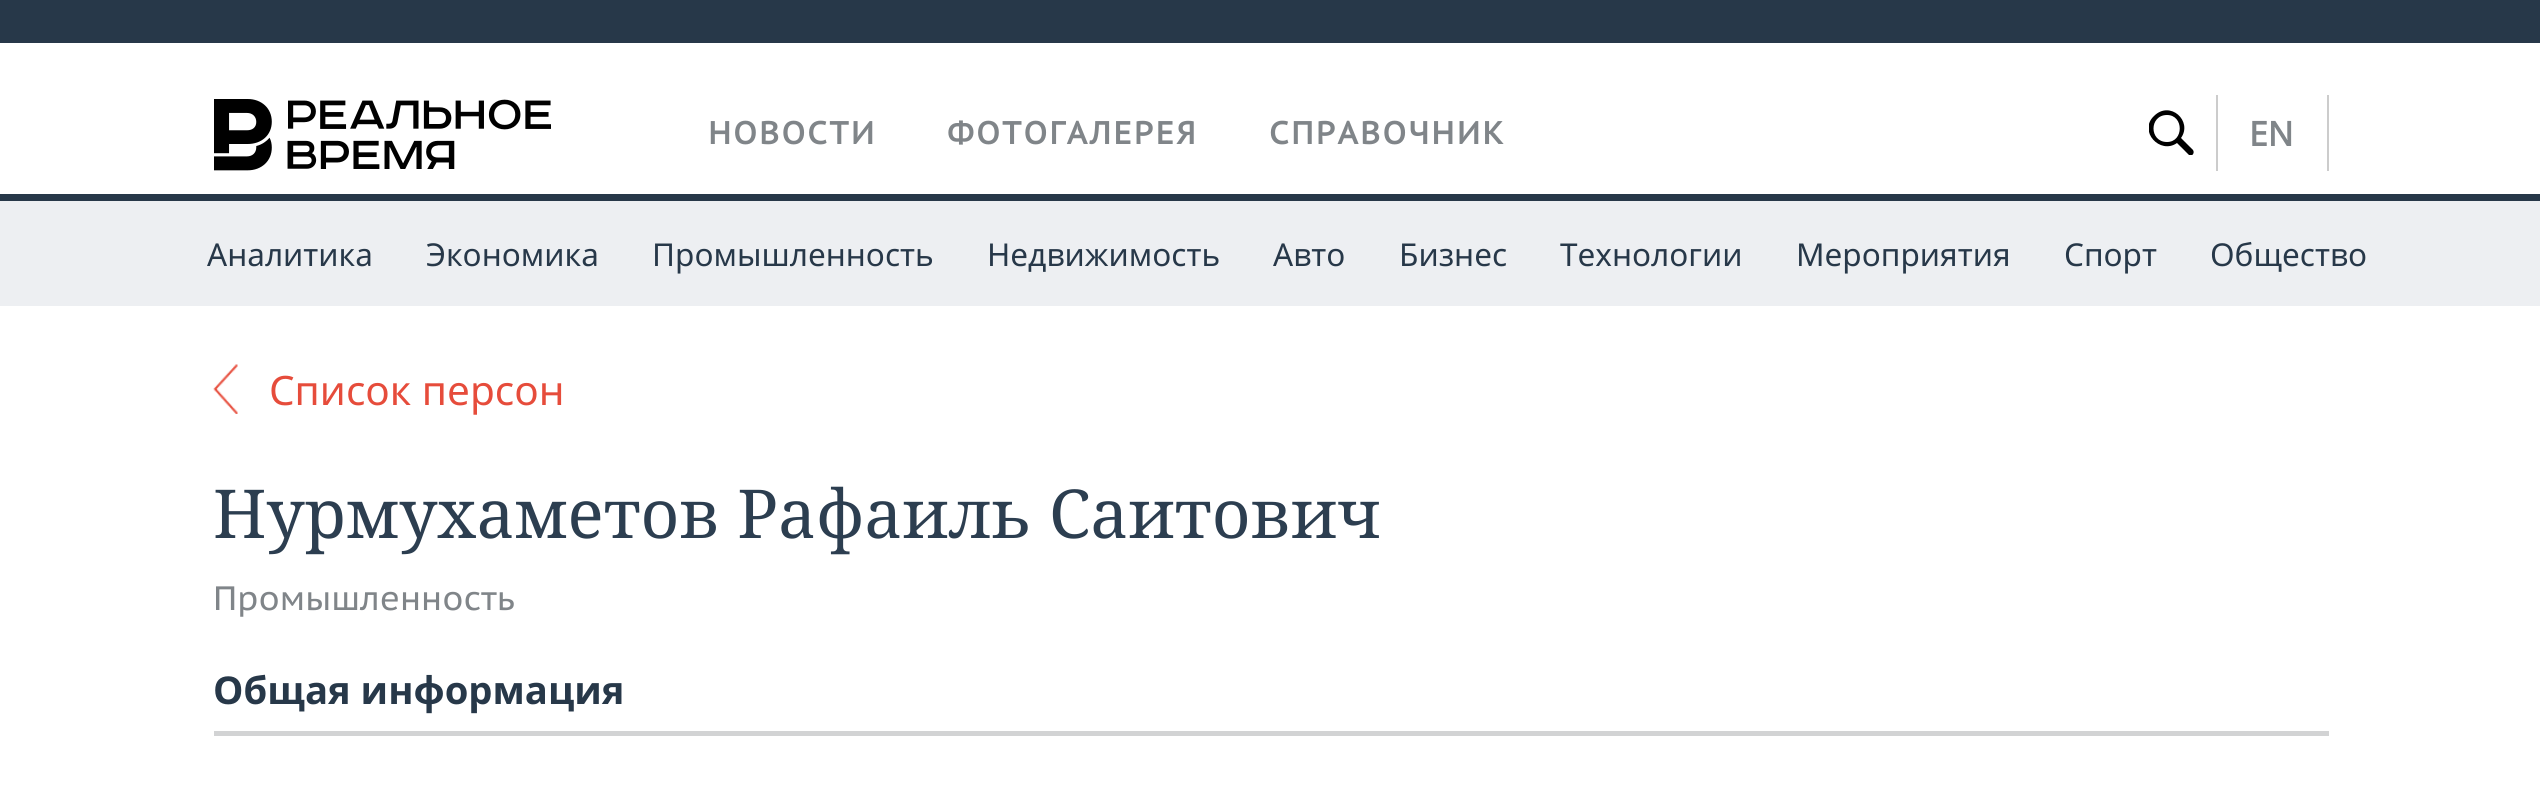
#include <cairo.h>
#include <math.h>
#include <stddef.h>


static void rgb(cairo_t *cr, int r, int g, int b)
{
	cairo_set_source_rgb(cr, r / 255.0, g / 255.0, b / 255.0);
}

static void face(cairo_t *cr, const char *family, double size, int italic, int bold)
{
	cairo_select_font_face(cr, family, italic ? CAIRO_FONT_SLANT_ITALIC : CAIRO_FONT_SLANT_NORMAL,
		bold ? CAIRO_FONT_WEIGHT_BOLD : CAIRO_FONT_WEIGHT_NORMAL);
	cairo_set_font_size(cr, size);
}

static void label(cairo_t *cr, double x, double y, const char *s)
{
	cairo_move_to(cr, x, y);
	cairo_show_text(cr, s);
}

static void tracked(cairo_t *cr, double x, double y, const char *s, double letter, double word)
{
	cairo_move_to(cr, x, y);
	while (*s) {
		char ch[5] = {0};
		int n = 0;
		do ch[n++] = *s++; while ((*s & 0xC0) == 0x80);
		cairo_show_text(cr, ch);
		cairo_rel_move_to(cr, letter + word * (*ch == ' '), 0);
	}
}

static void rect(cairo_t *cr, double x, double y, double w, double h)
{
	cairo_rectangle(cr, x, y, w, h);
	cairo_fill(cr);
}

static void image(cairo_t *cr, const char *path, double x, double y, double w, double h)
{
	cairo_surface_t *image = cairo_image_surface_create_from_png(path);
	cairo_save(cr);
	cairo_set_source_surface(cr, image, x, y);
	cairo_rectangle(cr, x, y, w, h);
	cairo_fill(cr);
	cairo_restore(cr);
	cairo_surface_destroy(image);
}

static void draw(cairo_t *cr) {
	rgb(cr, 255, 255, 255);
	cairo_paint(cr);
	rgb(cr, 39, 56, 73);
	rect(cr, 0, 0, 2540, 43);
	image(cr, "image0.png", 214, 99, 337, 72);
	face(cr, "PT Sans Caption", 31.5, 0, 1);
	rgb(cr, 128, 133, 137);
	tracked(cr, 708, 144, "НОВОСТИ", 2.25, 0);
	tracked(cr, 947, 144, "ФОТОГАЛЕРЕЯ", 2.25, 0);
	tracked(cr, 1269, 144, "СПРАВОЧНИК", 2.25, 0);
	cairo_save(cr);
	cairo_rectangle(cr, 2149, 110, 45, 45);
	cairo_clip(cr);
	rgb(cr, 0, 0, 0);
	cairo_new_path(cr);
	cairo_move_to(cr, 2193, 150);
	cairo_line_to(cr, 2181, 138);
	cairo_curve_to(cr, 2193, 121, 2170, 100, 2154, 116);
	cairo_curve_to(cr, 2138, 131, 2160, 155, 2177, 143);
	cairo_line_to(cr, 2189, 155);
	cairo_curve_to(cr, 2192, 157, 2195, 153, 2193, 150);
	cairo_close_path(cr);
	cairo_move_to(cr, 2167, 142);
	cairo_curve_to(cr, 2149, 142, 2149, 115, 2167, 115);
	cairo_curve_to(cr, 2184, 115, 2184, 142, 2167, 142);
	cairo_close_path(cr);
	cairo_fill(cr);
	cairo_restore(cr);
	rgb(cr, 204, 204, 204);
	rect(cr, 2327, 95, 2, 76);
	rect(cr, 2216, 95, 2, 76);
	face(cr, "Noto Sans", 33.75, 0, 1);
	rgb(cr, 128, 133, 137);
	label(cr, 2249, 146, "EN");
	rgb(cr, 39, 56, 73);
	rect(cr, 0, 194, 2540, 7);
	rgb(cr, 237, 239, 242);
	rect(cr, 0, 201, 2540, 105);
	face(cr, "Noto Sans", 31.5, 0, 0);
	rgb(cr, 39, 56, 73);
	label(cr, 207, 266, "Аналитика");
	label(cr, 426, 266, "Экономика");
	label(cr, 652, 266, "Промышленность");
	label(cr, 987, 266, "Недвижимость");
	label(cr, 1273, 266, "Авто");
	label(cr, 1399, 266, "Бизнес");
	label(cr, 1560, 266, "Технологии");
	label(cr, 1796, 266, "Мероприятия");
	label(cr, 2064, 266, "Спорт");
	label(cr, 2210, 266, "Общество");
	image(cr, "image1.png", 213, 364, 25, 50);
	face(cr, "Noto Sans", 40.5, 0, 0);
	rgb(cr, 230, 76, 59);
	label(cr, 269, 405, "Список персон");
	face(cr, "Noto Serif", 67.5, 0, 0);
	rgb(cr, 44, 62, 80);
	label(cr, 213, 538, "Нурмухаметов Рафаиль Саитович");
	face(cr, "PT Sans Caption", 33.75, 0, 0);
	rgb(cr, 128, 133, 137);
	label(cr, 213, 610, "Промышленность");
	face(cr, "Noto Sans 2", 38.25, 0, 1);
	rgb(cr, 39, 56, 73);
	label(cr, 213, 704, "Общая информация");
	rgb(cr, 210, 211, 212);
	rect(cr, 214, 731, 2115, 5);
}

int main(void) {
	cairo_surface_t *surface = cairo_image_surface_create(CAIRO_FORMAT_RGB24, 2540, 787);
	cairo_t *cr = cairo_create(surface);
	cairo_font_options_t *options = cairo_font_options_create();
	cairo_font_options_set_hint_metrics(options, CAIRO_HINT_METRICS_OFF);
	cairo_font_options_set_hint_style(options, CAIRO_HINT_STYLE_NONE);
	cairo_set_font_options(cr, options);
	cairo_set_miter_limit(cr, 4);
	draw(cr);
	cairo_surface_write_to_png(surface, "render.png");
	cairo_font_options_destroy(options);
	cairo_destroy(cr);
	cairo_surface_destroy(surface);
	return 0;
}
